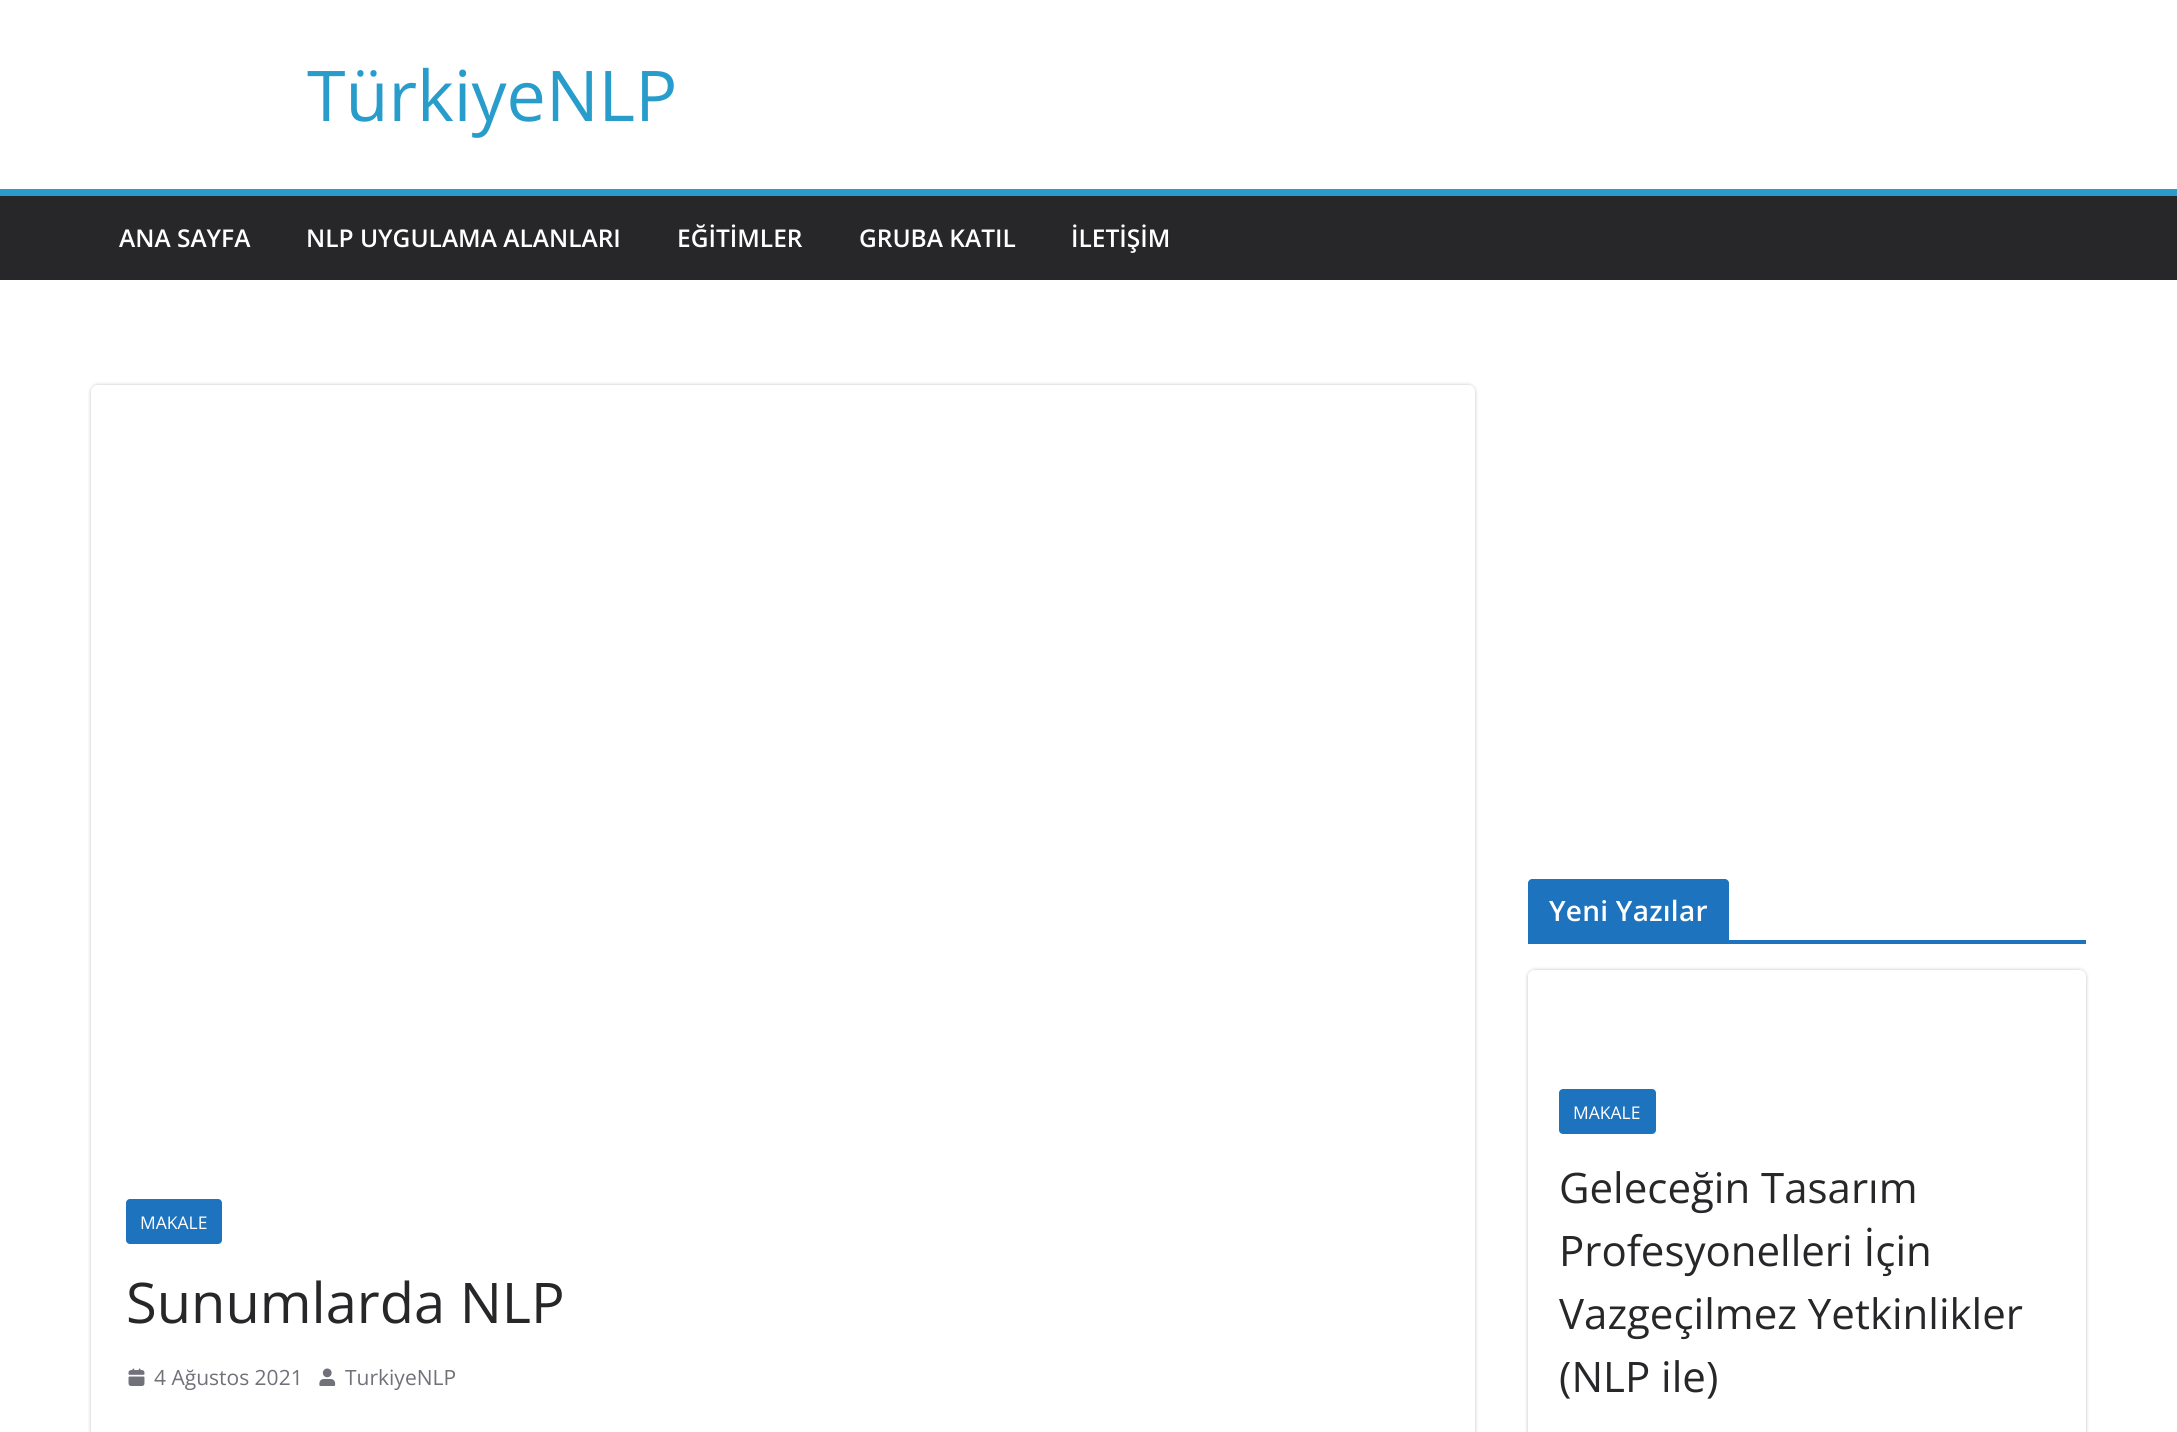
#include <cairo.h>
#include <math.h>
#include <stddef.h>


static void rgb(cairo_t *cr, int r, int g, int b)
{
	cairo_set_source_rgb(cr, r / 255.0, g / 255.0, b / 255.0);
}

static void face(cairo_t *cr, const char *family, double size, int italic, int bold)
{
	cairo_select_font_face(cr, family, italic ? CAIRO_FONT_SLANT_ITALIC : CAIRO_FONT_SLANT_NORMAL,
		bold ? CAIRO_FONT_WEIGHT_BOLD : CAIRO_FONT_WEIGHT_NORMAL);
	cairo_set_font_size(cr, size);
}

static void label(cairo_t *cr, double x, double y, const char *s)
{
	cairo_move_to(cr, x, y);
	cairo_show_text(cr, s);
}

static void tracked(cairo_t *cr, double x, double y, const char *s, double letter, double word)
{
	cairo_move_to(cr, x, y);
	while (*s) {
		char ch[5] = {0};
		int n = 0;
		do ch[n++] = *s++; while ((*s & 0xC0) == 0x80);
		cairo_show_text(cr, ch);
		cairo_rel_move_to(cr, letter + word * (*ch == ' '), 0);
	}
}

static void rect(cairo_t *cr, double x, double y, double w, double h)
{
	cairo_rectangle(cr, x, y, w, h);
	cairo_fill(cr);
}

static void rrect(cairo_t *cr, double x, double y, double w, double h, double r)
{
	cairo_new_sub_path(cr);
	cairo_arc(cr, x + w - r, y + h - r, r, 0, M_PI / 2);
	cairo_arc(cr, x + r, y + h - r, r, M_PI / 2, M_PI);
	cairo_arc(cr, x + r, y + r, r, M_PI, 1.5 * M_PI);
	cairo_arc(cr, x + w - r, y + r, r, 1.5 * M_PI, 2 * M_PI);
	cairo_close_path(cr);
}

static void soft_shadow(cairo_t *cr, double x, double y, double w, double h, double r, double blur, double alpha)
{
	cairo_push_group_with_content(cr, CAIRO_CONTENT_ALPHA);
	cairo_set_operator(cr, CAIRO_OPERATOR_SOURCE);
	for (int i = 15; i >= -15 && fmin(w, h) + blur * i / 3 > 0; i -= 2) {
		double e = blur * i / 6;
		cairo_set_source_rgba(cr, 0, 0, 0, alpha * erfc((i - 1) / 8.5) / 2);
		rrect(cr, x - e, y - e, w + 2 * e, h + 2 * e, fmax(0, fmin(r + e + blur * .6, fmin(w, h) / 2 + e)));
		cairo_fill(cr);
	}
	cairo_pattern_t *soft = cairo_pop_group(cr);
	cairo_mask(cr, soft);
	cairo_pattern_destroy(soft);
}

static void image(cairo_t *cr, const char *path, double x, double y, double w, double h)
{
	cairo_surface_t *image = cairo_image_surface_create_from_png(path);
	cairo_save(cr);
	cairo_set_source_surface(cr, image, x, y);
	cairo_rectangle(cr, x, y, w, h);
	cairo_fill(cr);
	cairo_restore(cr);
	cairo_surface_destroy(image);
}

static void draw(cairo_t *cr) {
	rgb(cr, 255, 255, 255);
	cairo_paint(cr);
	face(cr, "Open Sans", 70, 0, 0);
	rgb(cr, 40, 157, 204);
	label(cr, 307, 121, "TürkiyeNLP");
	rgb(cr, 39, 39, 42);
	rect(cr, 0, 196, 2177, 84);
	rgb(cr, 40, 157, 204);
	rect(cr, 0, 189, 2177, 7);
	face(cr, "Open Sans SemiBold", 24.5, 0, 0);
	rgb(cr, 255, 255, 255);
	label(cr, 119, 247, "ANA SAYFA");
	label(cr, 306, 247, "NLP UYGULAMA ALANLARI");
	label(cr, 677, 247, "EĞİTİMLER");
	label(cr, 859, 247, "GRUBA KATIL");
	label(cr, 1071, 247, "İLETİŞİM");
	cairo_save(cr);
	cairo_set_fill_rule(cr, CAIRO_FILL_RULE_EVEN_ODD);
	cairo_new_path(cr);
	cairo_move_to(cr, 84, 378);
	cairo_line_to(cr, 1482, 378);
	cairo_line_to(cr, 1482, 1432);
	cairo_line_to(cr, 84, 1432);
	cairo_close_path(cr);
	cairo_move_to(cr, 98, 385);
	cairo_line_to(cr, 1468, 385);
	cairo_curve_to(cr, 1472, 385, 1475, 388, 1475, 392);
	cairo_line_to(cr, 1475, 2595);
	cairo_curve_to(cr, 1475, 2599, 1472, 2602, 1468, 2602);
	cairo_line_to(cr, 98, 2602);
	cairo_curve_to(cr, 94, 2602, 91, 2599, 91, 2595);
	cairo_line_to(cr, 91, 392);
	cairo_curve_to(cr, 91, 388, 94, 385, 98, 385);
	cairo_close_path(cr);
	cairo_clip(cr);
	rgb(cr, 0, 0, 0);
	soft_shadow(cr, 91, 385, 1384, 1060, 7, 2, 0.24);
	cairo_restore(cr);
	rgb(cr, 30, 115, 190);
	rrect(cr, 126, 1199, 96, 45, 4);
	cairo_fill(cr);
	face(cr, "Open Sans", 17.5, 0, 0);
	rgb(cr, 255, 255, 255);
	label(cr, 140, 1229, "MAKALE");
	face(cr, "Open Sans", 56, 0, 0);
	rgb(cr, 39, 39, 42);
	label(cr, 126, 1323, "Sunumlarda NLP");
	image(cr, "image0.png", 128, 1368, 17, 18);
	face(cr, "Open Sans", 21, 0, 0);
	rgb(cr, 113, 113, 122);
	label(cr, 154, 1385, "4 Ağustos 2021");
	image(cr, "image1.png", 319, 1368, 17, 18);
	label(cr, 345, 1385, "TurkiyeNLP");
	rgb(cr, 30, 115, 190);
	rect(cr, 1528, 940, 558, 4);
	cairo_new_path(cr);
	cairo_move_to(cr, 1532, 879);
	cairo_line_to(cr, 1725, 879);
	cairo_curve_to(cr, 1727, 879, 1729, 881, 1729, 883);
	cairo_line_to(cr, 1729, 940);
	cairo_line_to(cr, 1528, 940);
	cairo_line_to(cr, 1528, 883);
	cairo_curve_to(cr, 1528, 881, 1530, 879, 1532, 879);
	cairo_close_path(cr);
	cairo_fill(cr);
	face(cr, "Open Sans SemiBold", 28, 0, 0);
	rgb(cr, 255, 255, 255);
	tracked(cr, 1549, 921, "Yeni Yazılar", 0.25, 0);
	cairo_save(cr);
	cairo_set_fill_rule(cr, CAIRO_FILL_RULE_EVEN_ODD);
	cairo_new_path(cr);
	cairo_move_to(cr, 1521, 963);
	cairo_line_to(cr, 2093, 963);
	cairo_line_to(cr, 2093, 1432);
	cairo_line_to(cr, 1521, 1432);
	cairo_close_path(cr);
	cairo_move_to(cr, 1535, 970);
	cairo_line_to(cr, 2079, 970);
	cairo_curve_to(cr, 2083, 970, 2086, 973, 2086, 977);
	cairo_line_to(cr, 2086, 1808);
	cairo_curve_to(cr, 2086, 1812, 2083, 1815, 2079, 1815);
	cairo_line_to(cr, 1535, 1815);
	cairo_curve_to(cr, 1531, 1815, 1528, 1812, 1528, 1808);
	cairo_line_to(cr, 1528, 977);
	cairo_curve_to(cr, 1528, 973, 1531, 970, 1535, 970);
	cairo_close_path(cr);
	cairo_clip(cr);
	rgb(cr, 0, 0, 0);
	soft_shadow(cr, 1528, 970, 558, 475, 7, 2, 0.24);
	cairo_restore(cr);
	rgb(cr, 30, 115, 190);
	rrect(cr, 1559, 1089, 97, 45, 4);
	cairo_fill(cr);
	face(cr, "Open Sans", 17.5, 0, 0);
	rgb(cr, 255, 255, 255);
	label(cr, 1573, 1119, "MAKALE");
	face(cr, "Open Sans", 42, 0, 0);
	rgb(cr, 39, 39, 42);
	label(cr, 1559, 1203, "Geleceğin Tasarım");
	label(cr, 1559, 1266, "Profesyonelleri İçin");
	label(cr, 1559, 1329, "Vazgeçilmez Yetkinlikler");
	label(cr, 1559, 1392, "(NLP ile)");
}

int main(void) {
	cairo_surface_t *surface = cairo_image_surface_create(CAIRO_FORMAT_RGB24, 2177, 1432);
	cairo_t *cr = cairo_create(surface);
	cairo_font_options_t *options = cairo_font_options_create();
	cairo_font_options_set_hint_metrics(options, CAIRO_HINT_METRICS_OFF);
	cairo_font_options_set_hint_style(options, CAIRO_HINT_STYLE_NONE);
	cairo_set_font_options(cr, options);
	cairo_set_miter_limit(cr, 4);
	draw(cr);
	cairo_surface_write_to_png(surface, "render.png");
	cairo_font_options_destroy(options);
	cairo_destroy(cr);
	cairo_surface_destroy(surface);
	return 0;
}
